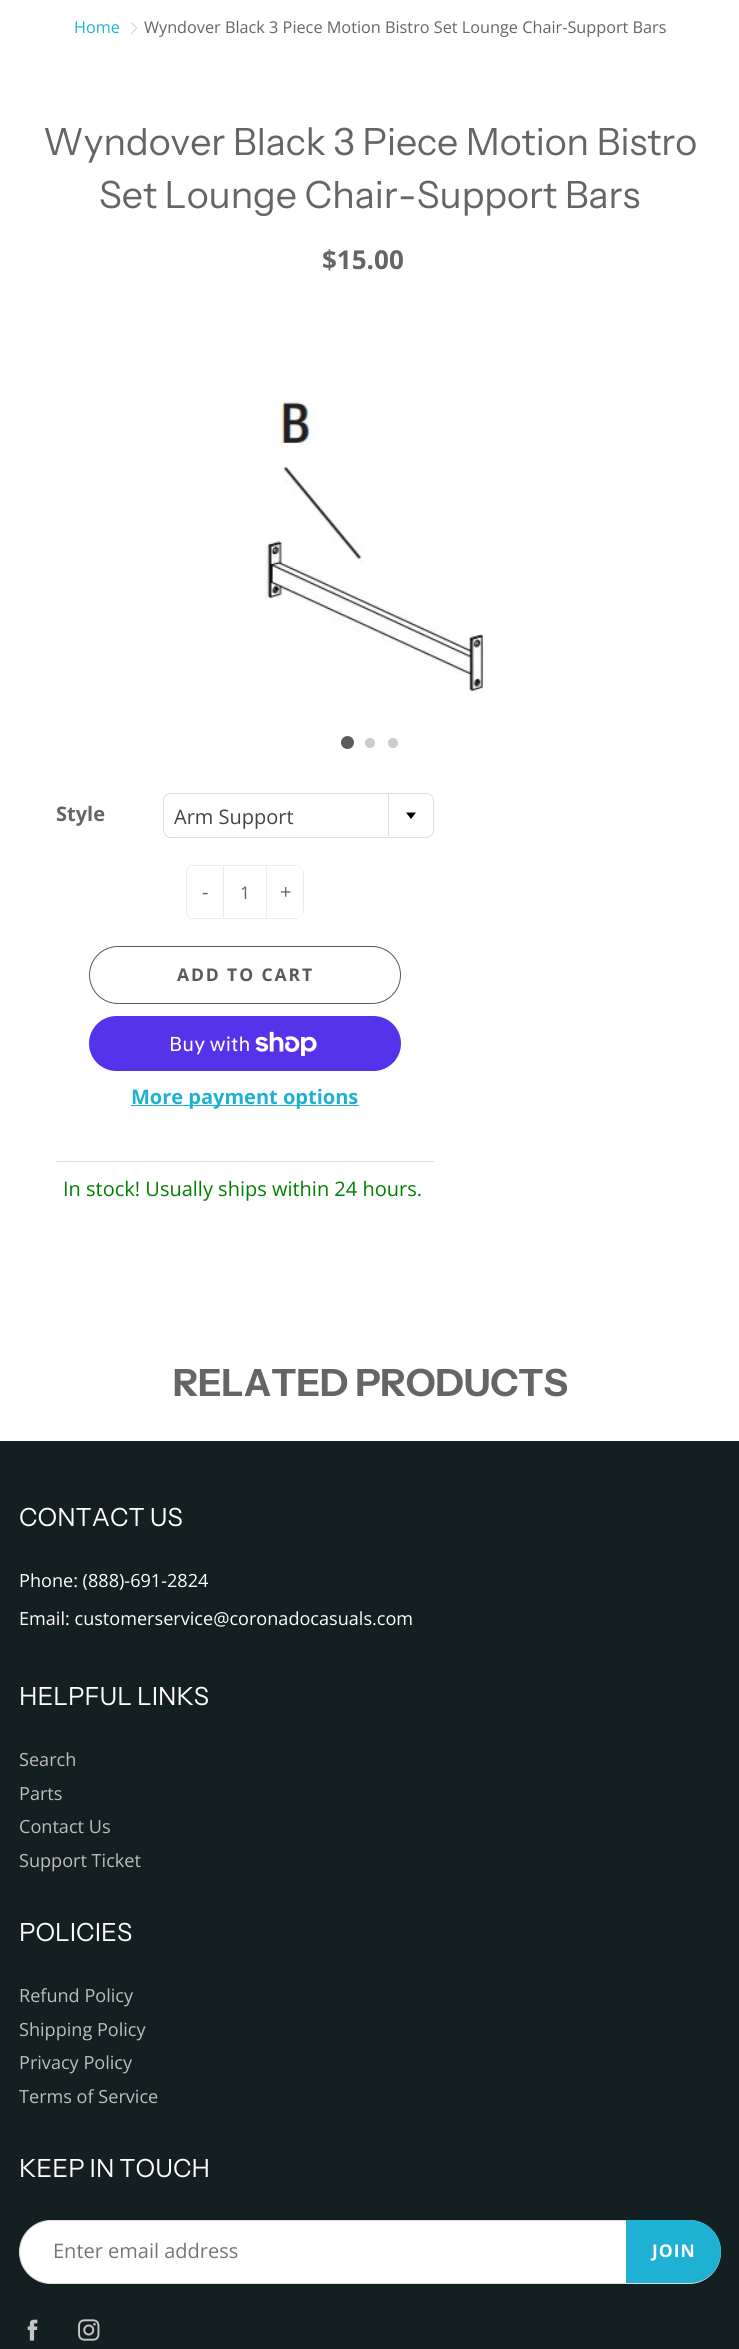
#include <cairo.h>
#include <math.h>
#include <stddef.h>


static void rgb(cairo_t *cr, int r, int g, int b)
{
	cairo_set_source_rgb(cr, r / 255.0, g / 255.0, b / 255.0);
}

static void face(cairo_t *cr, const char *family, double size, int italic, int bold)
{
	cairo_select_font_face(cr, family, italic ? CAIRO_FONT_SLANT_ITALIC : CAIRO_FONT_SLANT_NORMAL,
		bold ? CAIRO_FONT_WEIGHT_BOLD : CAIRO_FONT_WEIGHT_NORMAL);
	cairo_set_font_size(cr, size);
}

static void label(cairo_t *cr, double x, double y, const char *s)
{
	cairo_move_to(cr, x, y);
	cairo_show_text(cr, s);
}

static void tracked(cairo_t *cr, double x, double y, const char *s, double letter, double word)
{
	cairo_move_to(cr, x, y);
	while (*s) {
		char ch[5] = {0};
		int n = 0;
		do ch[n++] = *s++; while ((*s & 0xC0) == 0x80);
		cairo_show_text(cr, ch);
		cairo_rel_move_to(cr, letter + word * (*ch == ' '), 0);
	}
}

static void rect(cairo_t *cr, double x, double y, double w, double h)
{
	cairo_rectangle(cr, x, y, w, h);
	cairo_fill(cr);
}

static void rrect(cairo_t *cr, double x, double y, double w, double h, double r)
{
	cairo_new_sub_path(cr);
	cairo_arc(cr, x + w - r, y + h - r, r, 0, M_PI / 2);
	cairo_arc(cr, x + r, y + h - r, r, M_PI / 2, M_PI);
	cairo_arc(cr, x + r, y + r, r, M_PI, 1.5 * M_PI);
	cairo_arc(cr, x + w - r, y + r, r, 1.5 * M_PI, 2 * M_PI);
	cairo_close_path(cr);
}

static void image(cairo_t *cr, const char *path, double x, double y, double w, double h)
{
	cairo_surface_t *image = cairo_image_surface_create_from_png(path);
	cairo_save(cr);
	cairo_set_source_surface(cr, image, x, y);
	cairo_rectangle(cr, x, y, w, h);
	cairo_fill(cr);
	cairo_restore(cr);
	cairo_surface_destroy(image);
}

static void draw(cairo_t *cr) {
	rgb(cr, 255, 255, 255);
	cairo_paint(cr);
	face(cr, "Open Sans", 16.25, 0, 0);
	rgb(cr, 31, 177, 212);
	label(cr, 74, 33, "Home");
	image(cr, "image0.png", 130, 22, 7, 13);
	rgb(cr, 102, 101, 101);
	label(cr, 144, 33, "Wyndover Black 3 Piece Motion Bistro Set Lounge Chair-Support Bars");
	face(cr, "Instrument Sans", 37.5, 0, 0);
	label(cr, 43, 155, "Wyndover Black 3 Piece Motion Bistro");
	label(cr, 99, 208, "Set Lounge Chair-Support Bars");
	face(cr, "Open Sans", 26, 0, 1);
	label(cr, 322, 269, "$15.00");
	image(cr, "image1.png", 264, 398, 220, 296);
	rgb(cr, 92, 92, 92);
	cairo_arc(cr, 347.5, 742.5, 6.5, 0, 2 * M_PI);
	cairo_fill(cr);
	rgb(cr, 204, 204, 204);
	cairo_arc(cr, 370, 743, 5, 0, 2 * M_PI);
	cairo_fill(cr);
	cairo_arc(cr, 393, 743, 5, 0, 2 * M_PI);
	cairo_fill(cr);
	face(cr, "Open Sans", 20, 0, 1);
	rgb(cr, 102, 101, 101);
	label(cr, 56, 821, "Style");
	rrect(cr, 163.5, 793.5, 270, 44, 7.5);
	rgb(cr, 221, 221, 221);
	cairo_set_line_width(cr, 1);
	cairo_stroke(cr);
	face(cr, "Open Sans", 20, 0, 0);
	rgb(cr, 68, 68, 68);
	label(cr, 174, 824, "Arm Support");
	rgb(cr, 255, 255, 255);
	cairo_new_path(cr);
	cairo_move_to(cr, 388, 794);
	cairo_line_to(cr, 425, 794);
	cairo_curve_to(cr, 429.5, 794, 433, 797.5, 433, 802);
	cairo_line_to(cr, 433, 828);
	cairo_curve_to(cr, 433, 832.5, 429.5, 836, 425, 836);
	cairo_line_to(cr, 388, 836);
	cairo_close_path(cr);
	cairo_fill(cr);
	rgb(cr, 221, 221, 221);
	rect(cr, 388, 794, 1, 42);
	rgb(cr, 0, 0, 0);
	cairo_new_path(cr);
	cairo_move_to(cr, 406, 812.5);
	cairo_line_to(cr, 416, 812.5);
	cairo_line_to(cr, 411, 819);
	cairo_close_path(cr);
	cairo_fill(cr);
	rrect(cr, 186.5, 865.5, 117, 53, 7.5);
	rgb(cr, 237, 237, 237);
	cairo_stroke(cr);
	rgb(cr, 255, 255, 255);
	cairo_new_path(cr);
	cairo_move_to(cr, 194, 866);
	cairo_line_to(cr, 223, 866);
	cairo_line_to(cr, 223, 918);
	cairo_line_to(cr, 194, 918);
	cairo_curve_to(cr, 190.5, 918, 188, 915.5, 188, 912);
	cairo_line_to(cr, 188, 872);
	cairo_curve_to(cr, 188, 868.5, 190.5, 866, 194, 866);
	cairo_close_path(cr);
	cairo_fill(cr);
	rgb(cr, 102, 101, 101);
	label(cr, 202, 899, "-");
	rgb(cr, 237, 237, 237);
	rect(cr, 266, 866, 1, 52);
	rect(cr, 223, 866, 1, 52);
	face(cr, "Open Sans", 17.5, 0, 0);
	rgb(cr, 102, 101, 101);
	label(cr, 240, 899, "1");
	rgb(cr, 255, 255, 255);
	cairo_new_path(cr);
	cairo_move_to(cr, 268, 866);
	cairo_line_to(cr, 297, 866);
	cairo_curve_to(cr, 300.5, 866, 303, 868.5, 303, 872);
	cairo_line_to(cr, 303, 912);
	cairo_curve_to(cr, 303, 915.5, 300.5, 918, 297, 918);
	cairo_line_to(cr, 268, 918);
	cairo_close_path(cr);
	cairo_fill(cr);
	face(cr, "Open Sans", 20, 0, 0);
	rgb(cr, 102, 101, 101);
	label(cr, 280, 899, "+");
	rrect(cr, 89.5, 946.5, 311, 57, 28.5);
	rgb(cr, 89, 89, 89);
	cairo_stroke(cr);
	face(cr, "Open Sans", 17.5, 0, 1);
	tracked(cr, 177, 981, "ADD TO CART", 1.9, 0);
	rgb(cr, 84, 51, 235);
	rrect(cr, 89, 1016, 312, 55, 27.5);
	cairo_fill(cr);
	face(cr, "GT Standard", 20, 0, 0);
	rgb(cr, 255, 255, 255);
	label(cr, 169, 1051, "Buy with");
	image(cr, "image2.png", 255, 1031, 62, 25);
	rgb(cr, 31, 177, 212);
	rect(cr, 131, 1105, 228, 1);
	face(cr, "Open Sans", 20, 0, 1);
	label(cr, 131, 1104, "More payment options");
	rgb(cr, 221, 221, 221);
	rect(cr, 56, 1161, 378, 1);
	face(cr, "Open Sans", 20, 0, 0);
	rgb(cr, 0, 128, 0);
	label(cr, 63, 1196, "In stock! Usually ships within 24 hours.");
	face(cr, "Instrument Sans", 37.5, 0, 1);
	rgb(cr, 102, 101, 101);
	label(cr, 173, 1396, "RELATED PRODUCTS");
	rgb(cr, 20, 31, 33);
	rect(cr, 0, 1441, 739, 908);
	face(cr, "Instrument Sans", 25, 0, 0);
	rgb(cr, 255, 255, 255);
	label(cr, 19, 1526, "CONTACT US");
	face(cr, "Open Sans", 18.1, 0, 0);
	label(cr, 19, 1587, "Phone: (888)-691-2824");
	label(cr, 19, 1625, "Email: customerservice@coronadocasuals.com");
	face(cr, "Instrument Sans", 25, 0, 0);
	label(cr, 19, 1705, "HELPFUL LINKS");
	face(cr, "Open Sans", 18.1, 0, 0);
	rgb(cr, 189, 189, 189);
	label(cr, 19, 1766, "Search");
	label(cr, 19, 1800, "Parts");
	label(cr, 19, 1833, "Contact Us");
	label(cr, 19, 1867, "Support Ticket");
	face(cr, "Instrument Sans", 25, 0, 0);
	rgb(cr, 255, 255, 255);
	label(cr, 19, 1941, "POLICIES");
	face(cr, "Open Sans", 18.1, 0, 0);
	rgb(cr, 189, 189, 189);
	label(cr, 19, 2002, "Refund Policy");
	label(cr, 19, 2036, "Shipping Policy");
	label(cr, 19, 2069, "Privacy Policy");
	label(cr, 19, 2103, "Terms of Service");
	face(cr, "Instrument Sans", 25, 0, 0);
	rgb(cr, 255, 255, 255);
	label(cr, 19, 2177, "KEEP IN TOUCH");
	rrect(cr, 19.5, 2220.5, 701, 63, 31.5);
	cairo_fill_preserve(cr);
	rgb(cr, 221, 221, 221);
	cairo_stroke(cr);
	face(cr, "Open Sans", 20, 0, 0);
	rgb(cr, 117, 117, 117);
	label(cr, 53, 2258, "Enter email address");
	rgb(cr, 31, 177, 212);
	cairo_new_path(cr);
	cairo_move_to(cr, 626, 2220);
	cairo_line_to(cr, 689.5, 2220);
	cairo_curve_to(cr, 707, 2220, 721, 2234, 721, 2251.5);
	cairo_curve_to(cr, 721, 2269, 707, 2283, 689.5, 2283);
	cairo_line_to(cr, 626, 2283);
	cairo_close_path(cr);
	cairo_fill(cr);
	face(cr, "Open Sans", 17.5, 0, 1);
	rgb(cr, 255, 255, 255);
	tracked(cr, 652, 2257, "JOIN", 1, 0);
	image(cr, "image3.png", 27, 2319, 11, 22);
	image(cr, "image4.png", 78, 2319, 22, 22);
}

int main(void) {
	cairo_surface_t *surface = cairo_image_surface_create(CAIRO_FORMAT_RGB24, 739, 2349);
	cairo_t *cr = cairo_create(surface);
	cairo_font_options_t *options = cairo_font_options_create();
	cairo_font_options_set_hint_metrics(options, CAIRO_HINT_METRICS_OFF);
	cairo_font_options_set_hint_style(options, CAIRO_HINT_STYLE_NONE);
	cairo_set_font_options(cr, options);
	cairo_set_miter_limit(cr, 4);
	draw(cr);
	cairo_surface_write_to_png(surface, "render.png");
	cairo_font_options_destroy(options);
	cairo_destroy(cr);
	cairo_surface_destroy(surface);
	return 0;
}
